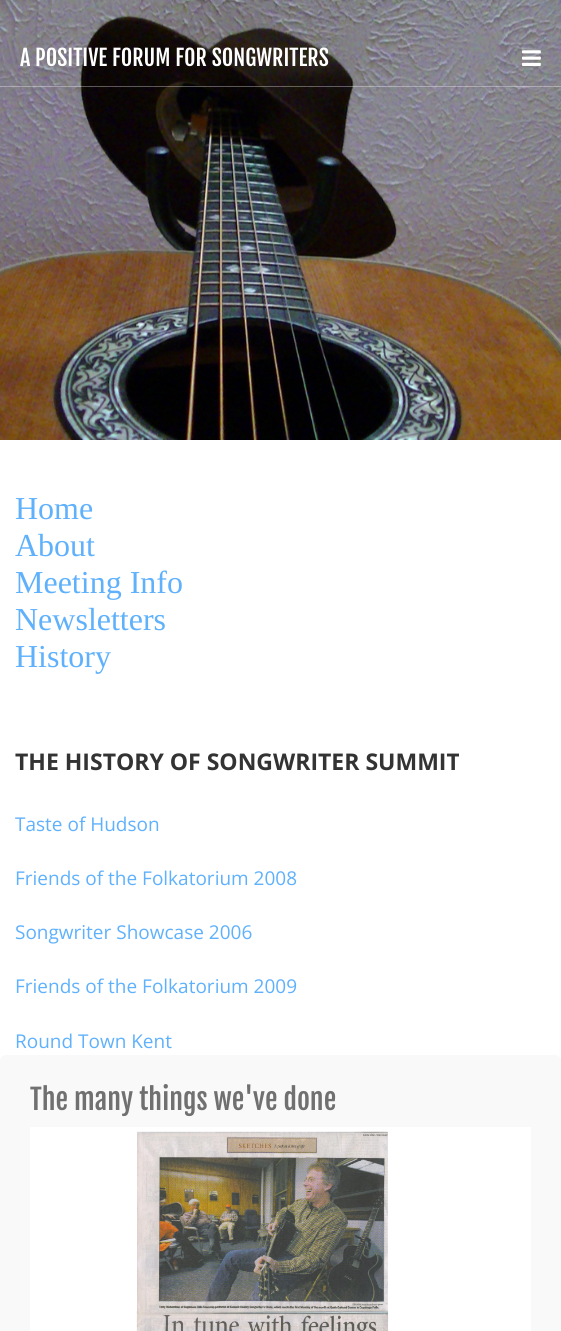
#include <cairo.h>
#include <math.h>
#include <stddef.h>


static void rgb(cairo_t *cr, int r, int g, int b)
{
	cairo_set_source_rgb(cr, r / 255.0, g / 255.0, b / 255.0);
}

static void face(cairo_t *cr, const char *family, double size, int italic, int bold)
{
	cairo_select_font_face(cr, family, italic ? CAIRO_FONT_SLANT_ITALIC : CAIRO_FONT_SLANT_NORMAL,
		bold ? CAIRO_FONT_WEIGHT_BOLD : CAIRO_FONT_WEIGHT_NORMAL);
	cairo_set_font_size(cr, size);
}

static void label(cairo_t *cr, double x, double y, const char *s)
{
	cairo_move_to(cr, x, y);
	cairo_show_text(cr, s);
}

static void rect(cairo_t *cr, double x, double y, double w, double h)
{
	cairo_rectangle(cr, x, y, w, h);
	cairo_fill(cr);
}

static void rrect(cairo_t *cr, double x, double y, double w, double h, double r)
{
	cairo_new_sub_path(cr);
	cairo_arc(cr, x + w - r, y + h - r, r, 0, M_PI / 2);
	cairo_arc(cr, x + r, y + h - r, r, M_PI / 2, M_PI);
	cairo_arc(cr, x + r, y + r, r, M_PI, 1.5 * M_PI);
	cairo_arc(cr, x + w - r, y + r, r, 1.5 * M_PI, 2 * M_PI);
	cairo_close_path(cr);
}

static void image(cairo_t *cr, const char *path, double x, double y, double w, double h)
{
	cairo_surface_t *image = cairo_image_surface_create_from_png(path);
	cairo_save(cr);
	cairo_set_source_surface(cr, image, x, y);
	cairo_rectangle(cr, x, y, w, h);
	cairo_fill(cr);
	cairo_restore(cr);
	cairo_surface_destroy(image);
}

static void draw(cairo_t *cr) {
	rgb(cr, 255, 255, 255);
	cairo_paint(cr);
	image(cr, "image0.png", 0, 0, 561, 440);
	cairo_set_source_rgba(cr, 1, 1, 1, 0.33);
	rect(cr, 0, 86, 561, 1);
	face(cr, "Fjalla One", 22, 0, 0);
	rgb(cr, 255, 255, 255);
	label(cr, 20, 66, "A POSITIVE FORUM FOR SONGWRITERS");
	image(cr, "image1.png", 522, 50, 19, 16);
	face(cr, "Liberation Serif", 32, 0, 0);
	rgb(cr, 95, 177, 252);
	label(cr, 15, 519, "Home");
	label(cr, 15, 556, "About");
	label(cr, 15, 593, "Meeting Info");
	label(cr, 15, 630, "Newsletters");
	label(cr, 15, 667, "History");
	face(cr, "Open Sans", 23, 0, 1);
	rgb(cr, 51, 51, 51);
	label(cr, 15, 770, "THE HISTORY OF SONGWRITER SUMMIT");
	face(cr, "Open Sans", 19, 0, 0);
	rgb(cr, 95, 177, 252);
	label(cr, 15, 831, "Taste of Hudson");
	label(cr, 15, 885, "Friends of the Folkatorium 2008");
	label(cr, 15, 939, "Songwriter Showcase 2006");
	label(cr, 15, 993, "Friends of the Folkatorium 2009");
	label(cr, 15, 1048, "Round Town Kent");
	rgb(cr, 249, 249, 249);
	rrect(cr, 0, 1055, 561, 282, 6);
	cairo_fill(cr);
	face(cr, "Fjalla One", 28, 0, 0);
	rgb(cr, 112, 112, 112);
	label(cr, 30, 1110, "The many things we've done");
	image(cr, "image2.png", 30, 1127, 501, 204);
}

int main(void) {
	cairo_surface_t *surface = cairo_image_surface_create(CAIRO_FORMAT_RGB24, 561, 1331);
	cairo_t *cr = cairo_create(surface);
	cairo_font_options_t *options = cairo_font_options_create();
	cairo_font_options_set_hint_metrics(options, CAIRO_HINT_METRICS_OFF);
	cairo_font_options_set_hint_style(options, CAIRO_HINT_STYLE_NONE);
	cairo_set_font_options(cr, options);
	cairo_set_miter_limit(cr, 4);
	draw(cr);
	cairo_surface_write_to_png(surface, "render.png");
	cairo_font_options_destroy(options);
	cairo_destroy(cr);
	cairo_surface_destroy(surface);
	return 0;
}
